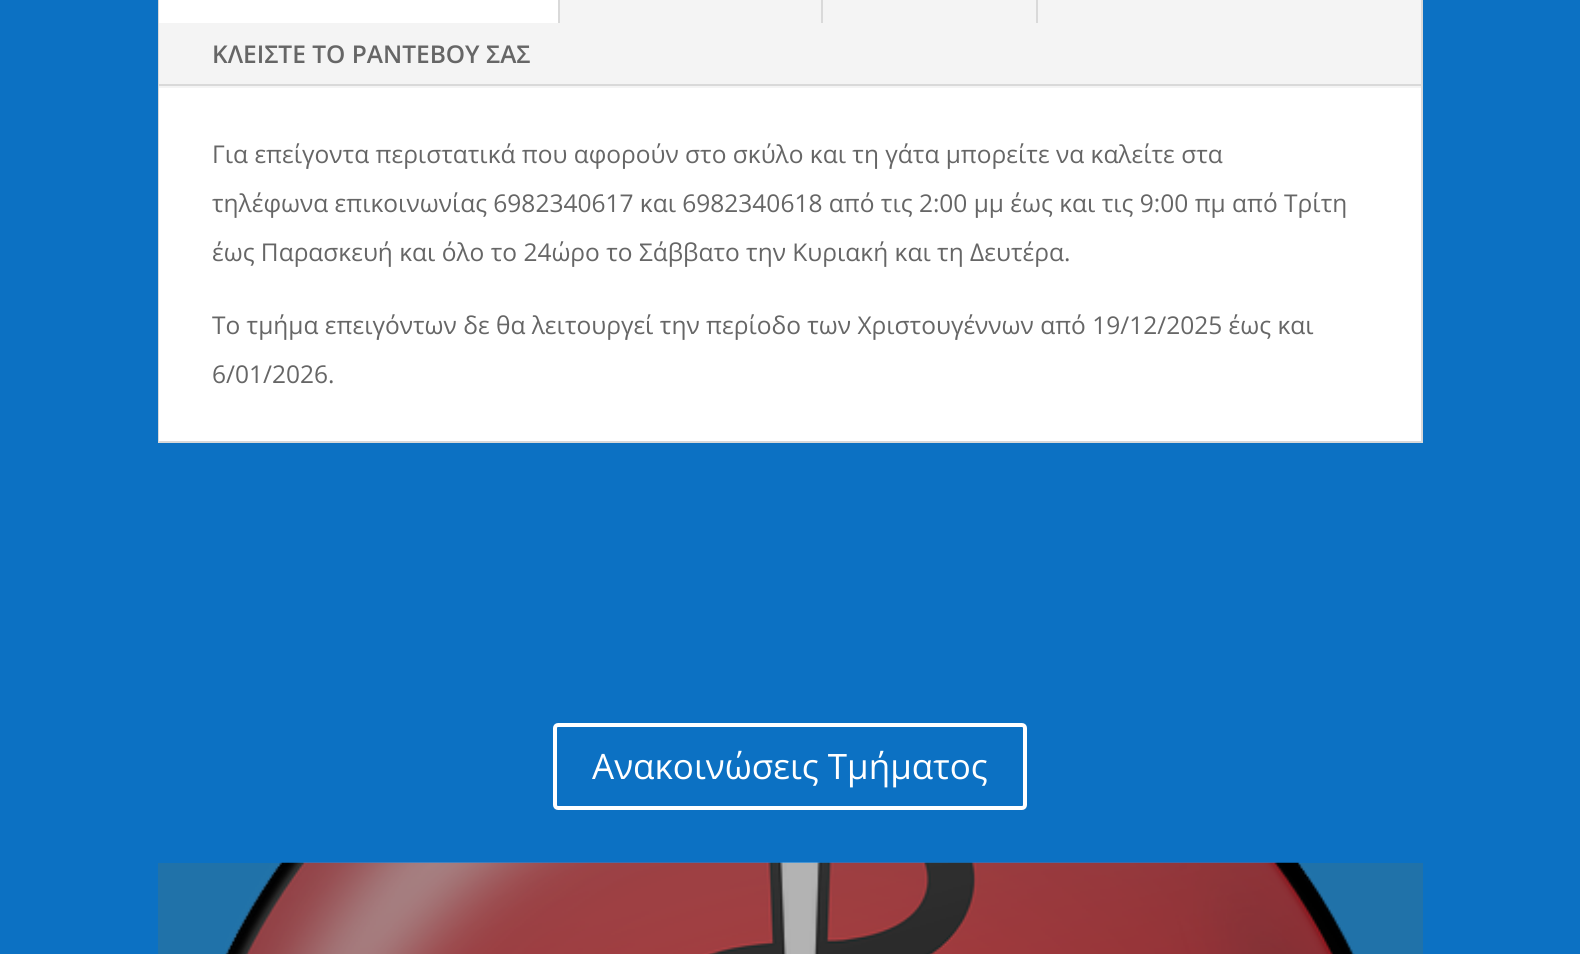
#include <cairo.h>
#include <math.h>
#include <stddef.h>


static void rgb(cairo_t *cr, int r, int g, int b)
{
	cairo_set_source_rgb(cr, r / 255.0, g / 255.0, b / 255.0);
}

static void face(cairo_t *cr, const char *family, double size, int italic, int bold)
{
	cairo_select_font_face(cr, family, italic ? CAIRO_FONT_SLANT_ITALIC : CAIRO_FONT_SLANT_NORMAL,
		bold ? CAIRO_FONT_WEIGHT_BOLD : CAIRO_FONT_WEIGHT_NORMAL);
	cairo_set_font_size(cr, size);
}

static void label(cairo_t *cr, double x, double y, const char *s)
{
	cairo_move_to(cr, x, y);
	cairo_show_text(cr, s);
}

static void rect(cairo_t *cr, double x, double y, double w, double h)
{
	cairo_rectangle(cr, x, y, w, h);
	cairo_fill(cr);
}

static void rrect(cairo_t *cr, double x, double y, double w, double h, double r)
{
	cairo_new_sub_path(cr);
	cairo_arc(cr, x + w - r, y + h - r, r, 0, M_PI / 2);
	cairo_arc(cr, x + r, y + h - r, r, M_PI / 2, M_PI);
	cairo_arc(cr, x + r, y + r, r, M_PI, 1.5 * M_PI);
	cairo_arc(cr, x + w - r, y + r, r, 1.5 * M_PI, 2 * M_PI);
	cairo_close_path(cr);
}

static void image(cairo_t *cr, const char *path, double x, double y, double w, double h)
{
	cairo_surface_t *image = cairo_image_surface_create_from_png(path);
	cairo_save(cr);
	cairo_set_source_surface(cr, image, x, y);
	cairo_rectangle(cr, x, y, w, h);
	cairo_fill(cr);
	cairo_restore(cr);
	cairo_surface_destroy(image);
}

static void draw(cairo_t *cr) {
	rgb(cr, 12, 113, 195);
	cairo_paint(cr);
	cairo_rectangle(cr, 159, -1, 1263, 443);
	rgb(cr, 217, 217, 217);
	cairo_stroke(cr);
	rgb(cr, 244, 244, 244);
	rect(cr, 159, 0, 1262, 88);
	rgb(cr, 255, 255, 255);
	rect(cr, 159, 0, 399, 23);
	rgb(cr, 217, 217, 217);
	rect(cr, 558, 0, 2, 23);
	rect(cr, 821, 0, 2, 23);
	rect(cr, 1036, 0, 2, 23);
	face(cr, "Open Sans SemiBold", 24.5, 0, 0);
	rgb(cr, 102, 102, 102);
	label(cr, 212, 63, "ΚΛΕΙΣΤΕ ΤΟ ΡΑΝΤΕΒΟΥ ΣΑΣ");
	rgb(cr, 217, 217, 217);
	rect(cr, 159, 84, 1262, 2);
	rgb(cr, 255, 255, 255);
	rect(cr, 159, 88, 1262, 353);
	face(cr, "Open Sans", 24.5, 0, 0);
	rgb(cr, 102, 102, 102);
	label(cr, 212, 163, "Για επείγοντα περιστατικά που αφορούν στο σκύλο και τη γάτα μπορείτε να καλείτε στα");
	label(cr, 212, 212, "τηλέφωνα επικοινωνίας 6982340617 και 6982340618 από τις 2:00 μμ έως και τις 9:00 πμ από Τρίτη");
	label(cr, 212, 261, "έως Παρασκευή και όλο το 24ώρο το Σάββατο την Κυριακή και τη Δευτέρα.");
	label(cr, 212, 334, "Το τμήμα επειγόντων δε θα λειτουργεί την περίοδο των Χριστουγέννων από 19/12/2025 έως και");
	label(cr, 212, 383, "6/01/2026.");
	rrect(cr, 555, 725, 470, 83, 3);
	rgb(cr, 255, 255, 255);
	cairo_set_line_width(cr, 4);
	cairo_stroke(cr);
	face(cr, "Open Sans", 35, 0, 0);
	label(cr, 592, 779, "Ανακοινώσεις Τμήματος");
	rgb(cr, 32, 114, 169);
	rect(cr, 158, 863, 1265, 91);
	image(cr, "image0.png", 225, 862, 1130, 92);
}

int main(void) {
	cairo_surface_t *surface = cairo_image_surface_create(CAIRO_FORMAT_RGB24, 1580, 954);
	cairo_t *cr = cairo_create(surface);
	cairo_font_options_t *options = cairo_font_options_create();
	cairo_font_options_set_hint_metrics(options, CAIRO_HINT_METRICS_OFF);
	cairo_font_options_set_hint_style(options, CAIRO_HINT_STYLE_NONE);
	cairo_set_font_options(cr, options);
	cairo_set_miter_limit(cr, 4);
	draw(cr);
	cairo_surface_write_to_png(surface, "render.png");
	cairo_font_options_destroy(options);
	cairo_destroy(cr);
	cairo_surface_destroy(surface);
	return 0;
}
